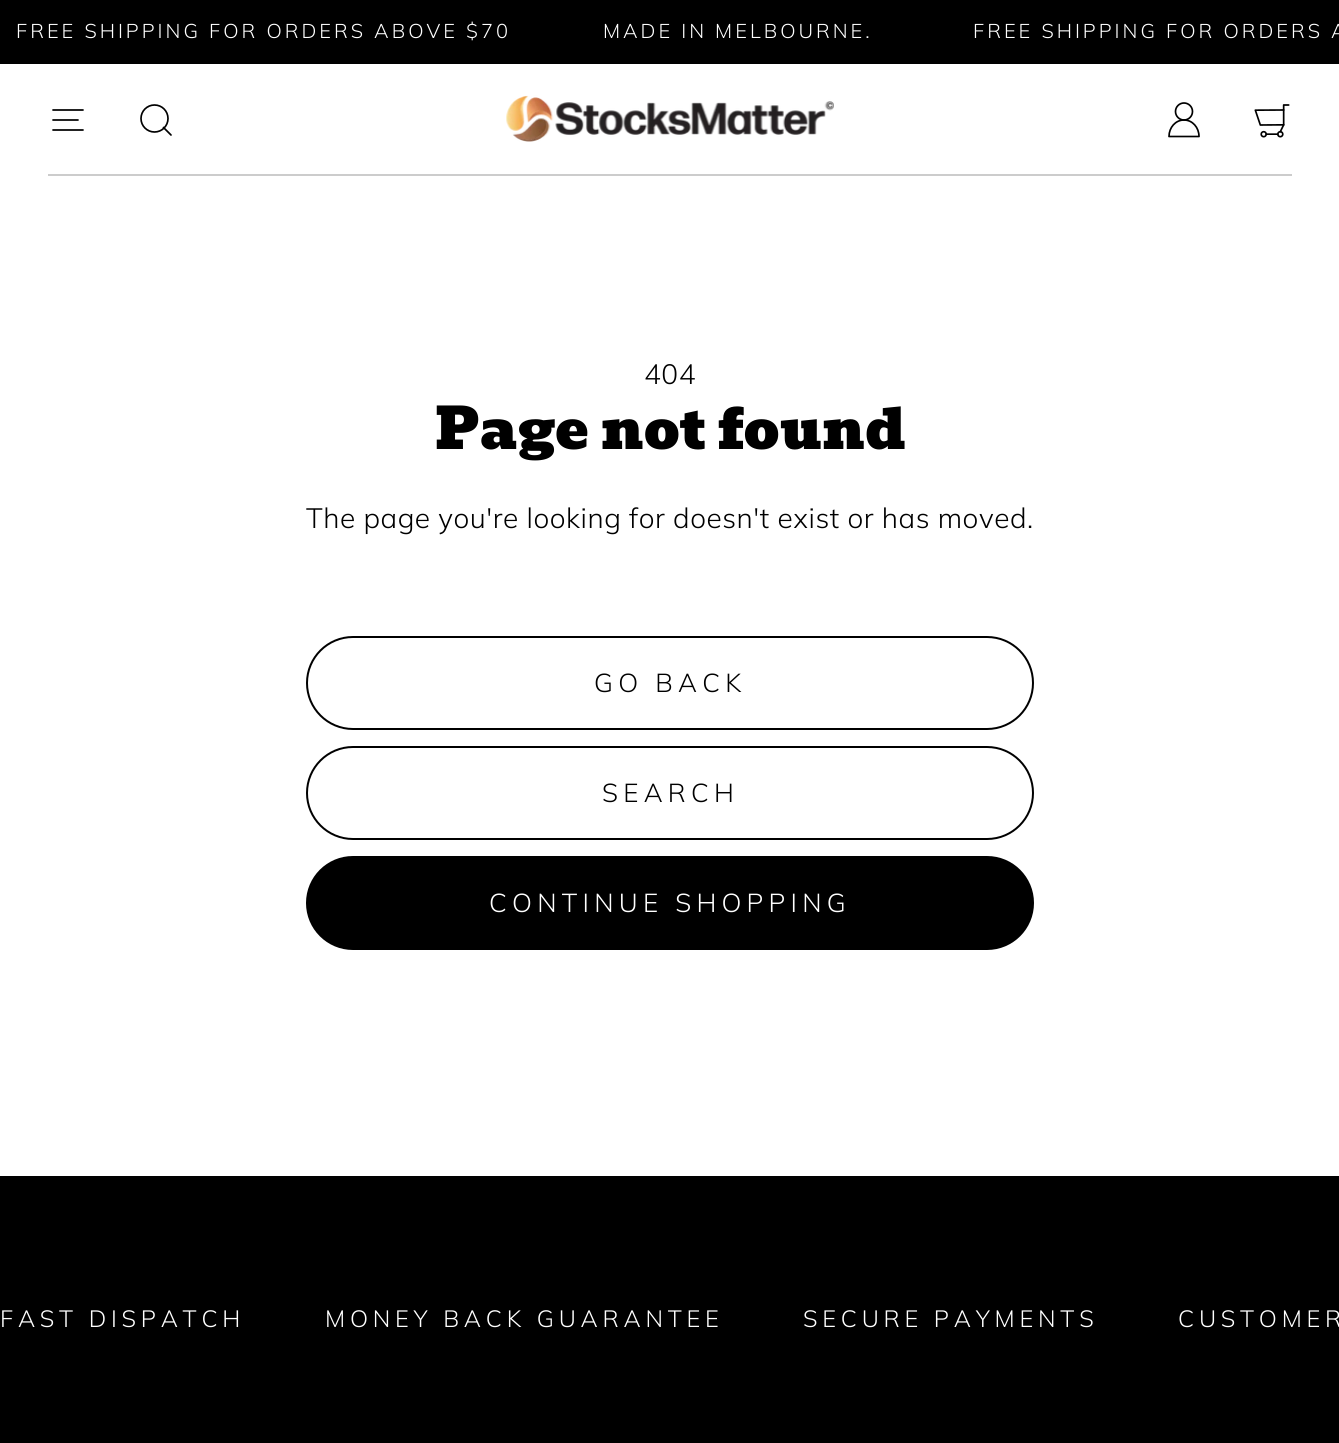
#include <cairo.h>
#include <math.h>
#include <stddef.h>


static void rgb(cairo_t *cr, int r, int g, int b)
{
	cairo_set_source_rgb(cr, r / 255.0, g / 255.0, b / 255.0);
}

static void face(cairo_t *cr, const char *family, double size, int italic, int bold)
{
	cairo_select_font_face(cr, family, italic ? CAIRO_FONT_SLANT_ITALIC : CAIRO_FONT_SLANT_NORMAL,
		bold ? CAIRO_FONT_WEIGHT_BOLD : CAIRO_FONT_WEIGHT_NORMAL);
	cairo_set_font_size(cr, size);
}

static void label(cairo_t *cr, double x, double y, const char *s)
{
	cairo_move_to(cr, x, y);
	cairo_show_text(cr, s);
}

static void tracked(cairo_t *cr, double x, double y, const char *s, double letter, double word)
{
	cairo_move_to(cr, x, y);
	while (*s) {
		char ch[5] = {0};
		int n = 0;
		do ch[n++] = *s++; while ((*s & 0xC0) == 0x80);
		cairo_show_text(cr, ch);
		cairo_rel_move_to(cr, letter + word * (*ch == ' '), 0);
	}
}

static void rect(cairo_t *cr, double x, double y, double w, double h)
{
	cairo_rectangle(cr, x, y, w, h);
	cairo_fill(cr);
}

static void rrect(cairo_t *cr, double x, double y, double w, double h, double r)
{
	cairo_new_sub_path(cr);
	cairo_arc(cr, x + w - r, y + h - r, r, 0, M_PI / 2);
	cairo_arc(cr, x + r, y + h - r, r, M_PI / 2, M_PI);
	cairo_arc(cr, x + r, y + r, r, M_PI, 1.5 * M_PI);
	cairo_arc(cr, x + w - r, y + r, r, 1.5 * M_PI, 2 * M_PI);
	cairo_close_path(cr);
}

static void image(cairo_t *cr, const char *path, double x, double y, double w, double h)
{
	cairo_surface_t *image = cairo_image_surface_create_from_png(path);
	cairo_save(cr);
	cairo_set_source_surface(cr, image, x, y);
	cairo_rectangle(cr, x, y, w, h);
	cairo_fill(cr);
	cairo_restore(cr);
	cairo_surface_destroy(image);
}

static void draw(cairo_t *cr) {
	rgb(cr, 255, 255, 255);
	cairo_paint(cr);
	rgb(cr, 0, 0, 0);
	rect(cr, 0, 0, 1339, 64);
	face(cr, "Muli Light", 20, 0, 0);
	rgb(cr, 255, 255, 255);
	tracked(cr, 16, 38, "FREE SHIPPING FOR ORDERS ABOVE $70", 3, 0);
	tracked(cr, 603, 38, "MADE IN MELBOURNE.", 3, 0);
	tracked(cr, 973, 38, "FREE SHIPPING FOR ORDERS A", 3, 0);
	cairo_new_path(cr);
	cairo_move_to(cr, 53, 110);
	cairo_line_to(cr, 83, 110);
	cairo_move_to(cr, 53, 120);
	cairo_line_to(cr, 78, 120);
	cairo_move_to(cr, 53, 130);
	cairo_line_to(cr, 83, 130);
	rgb(cr, 0, 0, 0);
	cairo_set_line_width(cr, 1.7);
	cairo_set_line_cap(cr, CAIRO_LINE_CAP_ROUND);
	cairo_set_line_join(cr, CAIRO_LINE_JOIN_ROUND);
	cairo_stroke(cr);
	cairo_arc(cr, 154.5, 118.5, 13.5, 0, 2 * M_PI);
	cairo_set_line_cap(cr, CAIRO_LINE_CAP_BUTT);
	cairo_set_line_join(cr, CAIRO_LINE_JOIN_MITER);
	cairo_stroke(cr);
	cairo_new_path(cr);
	cairo_move_to(cr, 171, 135);
	cairo_line_to(cr, 163.5, 127.5);
	cairo_set_line_cap(cr, CAIRO_LINE_CAP_ROUND);
	cairo_set_line_join(cr, CAIRO_LINE_JOIN_ROUND);
	cairo_stroke(cr);
	image(cr, "image0.png", 506, 95, 328, 47);
	cairo_arc(cr, 1184, 111.5, 8.5, 0, 2 * M_PI);
	cairo_set_line_cap(cr, CAIRO_LINE_CAP_BUTT);
	cairo_set_line_join(cr, CAIRO_LINE_JOIN_MITER);
	cairo_stroke(cr);
	cairo_new_path(cr);
	cairo_move_to(cr, 1184, 120);
	cairo_curve_to(cr, 1175.5, 120, 1169, 127.5, 1169, 136.5);
	cairo_line_to(cr, 1199, 136.5);
	cairo_curve_to(cr, 1199, 127.5, 1192.5, 120, 1184, 120);
	cairo_close_path(cr);
	cairo_set_line_cap(cr, CAIRO_LINE_CAP_ROUND);
	cairo_set_line_join(cr, CAIRO_LINE_JOIN_ROUND);
	cairo_stroke(cr);
	image(cr, "image1.png", 1254, 104, 36, 34);
	rgb(cr, 204, 204, 204);
	rect(cr, 48, 174, 1244, 2);
	face(cr, "Muli Light", 28, 0, 0);
	rgb(cr, 0, 0, 0);
	tracked(cr, 644, 384, "404", 0.55, 0);
	face(cr, "Bevan", 56, 0, 0);
	label(cr, 435, 449, "Page not found");
	face(cr, "Muli Light", 28, 0, 0);
	tracked(cr, 306, 528, "The page you're looking for doesn't exist or has moved.", 0.55, 0);
	rrect(cr, 307, 637, 726, 92, 46);
	cairo_set_line_width(cr, 2);
	cairo_set_line_cap(cr, CAIRO_LINE_CAP_BUTT);
	cairo_set_line_join(cr, CAIRO_LINE_JOIN_MITER);
	cairo_stroke(cr);
	face(cr, "Muli Light", 26, 0, 0);
	tracked(cr, 594, 692, "GO BACK", 5.25, 0);
	rrect(cr, 307, 747, 726, 92, 46);
	cairo_stroke(cr);
	tracked(cr, 602, 802, "SEARCH", 5.25, 0);
	rrect(cr, 306, 856, 728, 94, 47);
	cairo_fill(cr);
	rgb(cr, 255, 255, 255);
	tracked(cr, 489, 912, "CONTINUE SHOPPING", 5.25, 0);
	rgb(cr, 0, 0, 0);
	rect(cr, 0, 1176, 1339, 267);
	face(cr, "Muli Light", 23.6, 0, 0);
	rgb(cr, 255, 255, 255);
	tracked(cr, 0, 1327, "FAST DISPATCH", 4.75, 0);
	tracked(cr, 325, 1327, "MONEY BACK GUARANTEE", 4.75, 0);
	tracked(cr, 803, 1327, "SECURE PAYMENTS", 4.75, 0);
	tracked(cr, 1178, 1327, "CUSTOMER", 4.75, 0);
}

int main(void) {
	cairo_surface_t *surface = cairo_image_surface_create(CAIRO_FORMAT_RGB24, 1339, 1443);
	cairo_t *cr = cairo_create(surface);
	cairo_font_options_t *options = cairo_font_options_create();
	cairo_font_options_set_hint_metrics(options, CAIRO_HINT_METRICS_OFF);
	cairo_font_options_set_hint_style(options, CAIRO_HINT_STYLE_NONE);
	cairo_set_font_options(cr, options);
	cairo_set_miter_limit(cr, 4);
	draw(cr);
	cairo_surface_write_to_png(surface, "render.png");
	cairo_font_options_destroy(options);
	cairo_destroy(cr);
	cairo_surface_destroy(surface);
	return 0;
}
